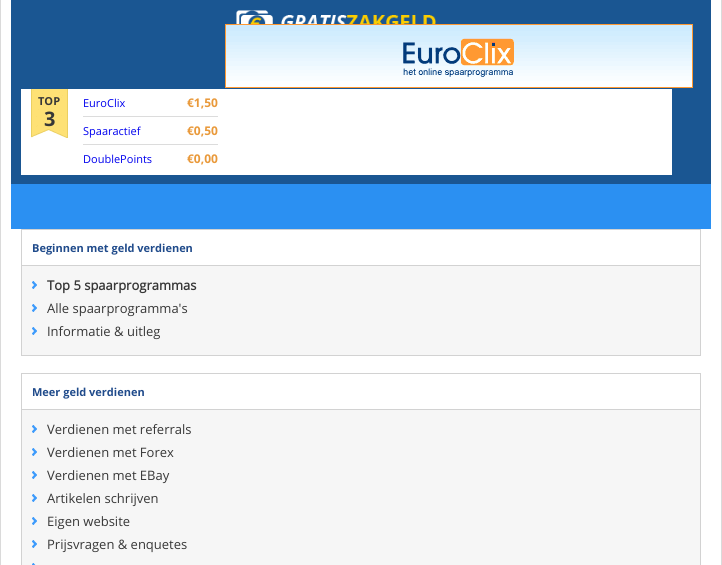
#include <cairo.h>
#include <math.h>
#include <stddef.h>


static void rgb(cairo_t *cr, int r, int g, int b)
{
	cairo_set_source_rgb(cr, r / 255.0, g / 255.0, b / 255.0);
}

static void face(cairo_t *cr, const char *family, double size, int italic, int bold)
{
	cairo_select_font_face(cr, family, italic ? CAIRO_FONT_SLANT_ITALIC : CAIRO_FONT_SLANT_NORMAL,
		bold ? CAIRO_FONT_WEIGHT_BOLD : CAIRO_FONT_WEIGHT_NORMAL);
	cairo_set_font_size(cr, size);
}

static void label(cairo_t *cr, double x, double y, const char *s)
{
	cairo_move_to(cr, x, y);
	cairo_show_text(cr, s);
}

static void rect(cairo_t *cr, double x, double y, double w, double h)
{
	cairo_rectangle(cr, x, y, w, h);
	cairo_fill(cr);
}

static void image(cairo_t *cr, const char *path, double x, double y, double w, double h)
{
	cairo_surface_t *image = cairo_image_surface_create_from_png(path);
	cairo_save(cr);
	cairo_set_source_surface(cr, image, x, y);
	cairo_rectangle(cr, x, y, w, h);
	cairo_fill(cr);
	cairo_restore(cr);
	cairo_surface_destroy(image);
}

static void draw(cairo_t *cr) {
	rgb(cr, 255, 255, 255);
	cairo_paint(cr);
	rgb(cr, 218, 218, 218);
	rect(cr, 721, 0, 1, 565);
	rect(cr, 0, 0, 1, 565);
	rgb(cr, 26, 86, 146);
	rect(cr, 11, 0, 700, 184);
	image(cr, "image0.png", 236, 10, 200, 14);
	image(cr, "image1.png", 225, 24, 468, 64);
	rgb(cr, 255, 255, 255);
	rect(cr, 21, 89, 651, 86);
	image(cr, "image2.png", 31, 89, 37, 49);
	face(cr, "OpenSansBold", 11, 0, 1);
	rgb(cr, 55, 55, 55);
	label(cr, 38, 105, "TOP");
	face(cr, "OpenSansBold", 20, 0, 1);
	label(cr, 44, 126, "3");
	rgb(cr, 220, 220, 220);
	rect(cr, 83, 116, 135, 1);
	face(cr, "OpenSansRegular", 11, 0, 0);
	rgb(cr, 0, 0, 238);
	label(cr, 83, 107, "EuroClix");
	face(cr, "OpenSansBold", 12, 0, 1);
	rgb(cr, 233, 153, 58);
	label(cr, 187, 107, "€1,50");
	rgb(cr, 220, 220, 220);
	rect(cr, 83, 144, 135, 1);
	face(cr, "OpenSansRegular", 11, 0, 0);
	rgb(cr, 0, 0, 238);
	label(cr, 83, 135, "Spaaractief");
	face(cr, "OpenSansBold", 12, 0, 1);
	rgb(cr, 233, 153, 58);
	label(cr, 187, 135, "€0,50");
	face(cr, "OpenSansRegular", 11, 0, 0);
	rgb(cr, 0, 0, 238);
	label(cr, 83, 163, "DoublePoints");
	face(cr, "OpenSansBold", 12, 0, 1);
	rgb(cr, 233, 153, 58);
	label(cr, 187, 163, "€0,00");
	rgb(cr, 43, 144, 242);
	rect(cr, 11, 184, 700, 45);
	rgb(cr, 246, 246, 246);
	rect(cr, 22, 266, 678, 89);
	cairo_rectangle(cr, 21.5, 229.5, 679, 126);
	rgb(cr, 210, 210, 210);
	cairo_set_line_width(cr, 1);
	cairo_stroke(cr);
	rect(cr, 22, 265, 678, 1);
	face(cr, "OpenSansBold", 11, 0, 1);
	rgb(cr, 32, 75, 139);
	label(cr, 32, 252, "Beginnen met geld verdienen");
	image(cr, "image3.png", 32, 281, 5, 8);
	face(cr, "OpenSansRegular", 13, 0, 1);
	rgb(cr, 55, 55, 55);
	label(cr, 47, 290, "Top 5 spaarprogrammas");
	image(cr, "image3.png", 32, 304, 5, 8);
	face(cr, "OpenSansRegular", 13, 0, 0);
	label(cr, 47, 313, "Alle spaarprogramma's");
	image(cr, "image3.png", 32, 327, 5, 8);
	label(cr, 47, 336, "Informatie & uitleg");
	rgb(cr, 246, 246, 246);
	rect(cr, 22, 410, 678, 155);
	cairo_rectangle(cr, 21.5, 373.5, 679, 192);
	rgb(cr, 210, 210, 210);
	cairo_stroke(cr);
	rect(cr, 22, 409, 678, 1);
	face(cr, "OpenSansBold", 11, 0, 1);
	rgb(cr, 32, 75, 139);
	label(cr, 32, 396, "Meer geld verdienen");
	image(cr, "image3.png", 32, 425, 5, 8);
	face(cr, "OpenSansRegular", 13, 0, 0);
	rgb(cr, 55, 55, 55);
	label(cr, 47, 434, "Verdienen met referrals");
	image(cr, "image3.png", 32, 448, 5, 8);
	label(cr, 47, 457, "Verdienen met Forex");
	image(cr, "image3.png", 32, 471, 5, 8);
	label(cr, 47, 480, "Verdienen met EBay");
	image(cr, "image3.png", 32, 494, 5, 8);
	label(cr, 47, 503, "Artikelen schrijven");
	image(cr, "image3.png", 32, 517, 5, 8);
	label(cr, 47, 526, "Eigen website");
	image(cr, "image3.png", 32, 540, 5, 8);
	label(cr, 47, 549, "Prijsvragen & enquetes");
	image(cr, "image4.png", 32, 563, 4, 2);
}

int main(void) {
	cairo_surface_t *surface = cairo_image_surface_create(CAIRO_FORMAT_RGB24, 722, 565);
	cairo_t *cr = cairo_create(surface);
	cairo_font_options_t *options = cairo_font_options_create();
	cairo_font_options_set_hint_metrics(options, CAIRO_HINT_METRICS_OFF);
	cairo_font_options_set_hint_style(options, CAIRO_HINT_STYLE_NONE);
	cairo_set_font_options(cr, options);
	cairo_set_miter_limit(cr, 4);
	draw(cr);
	cairo_surface_write_to_png(surface, "render.png");
	cairo_font_options_destroy(options);
	cairo_destroy(cr);
	cairo_surface_destroy(surface);
	return 0;
}
